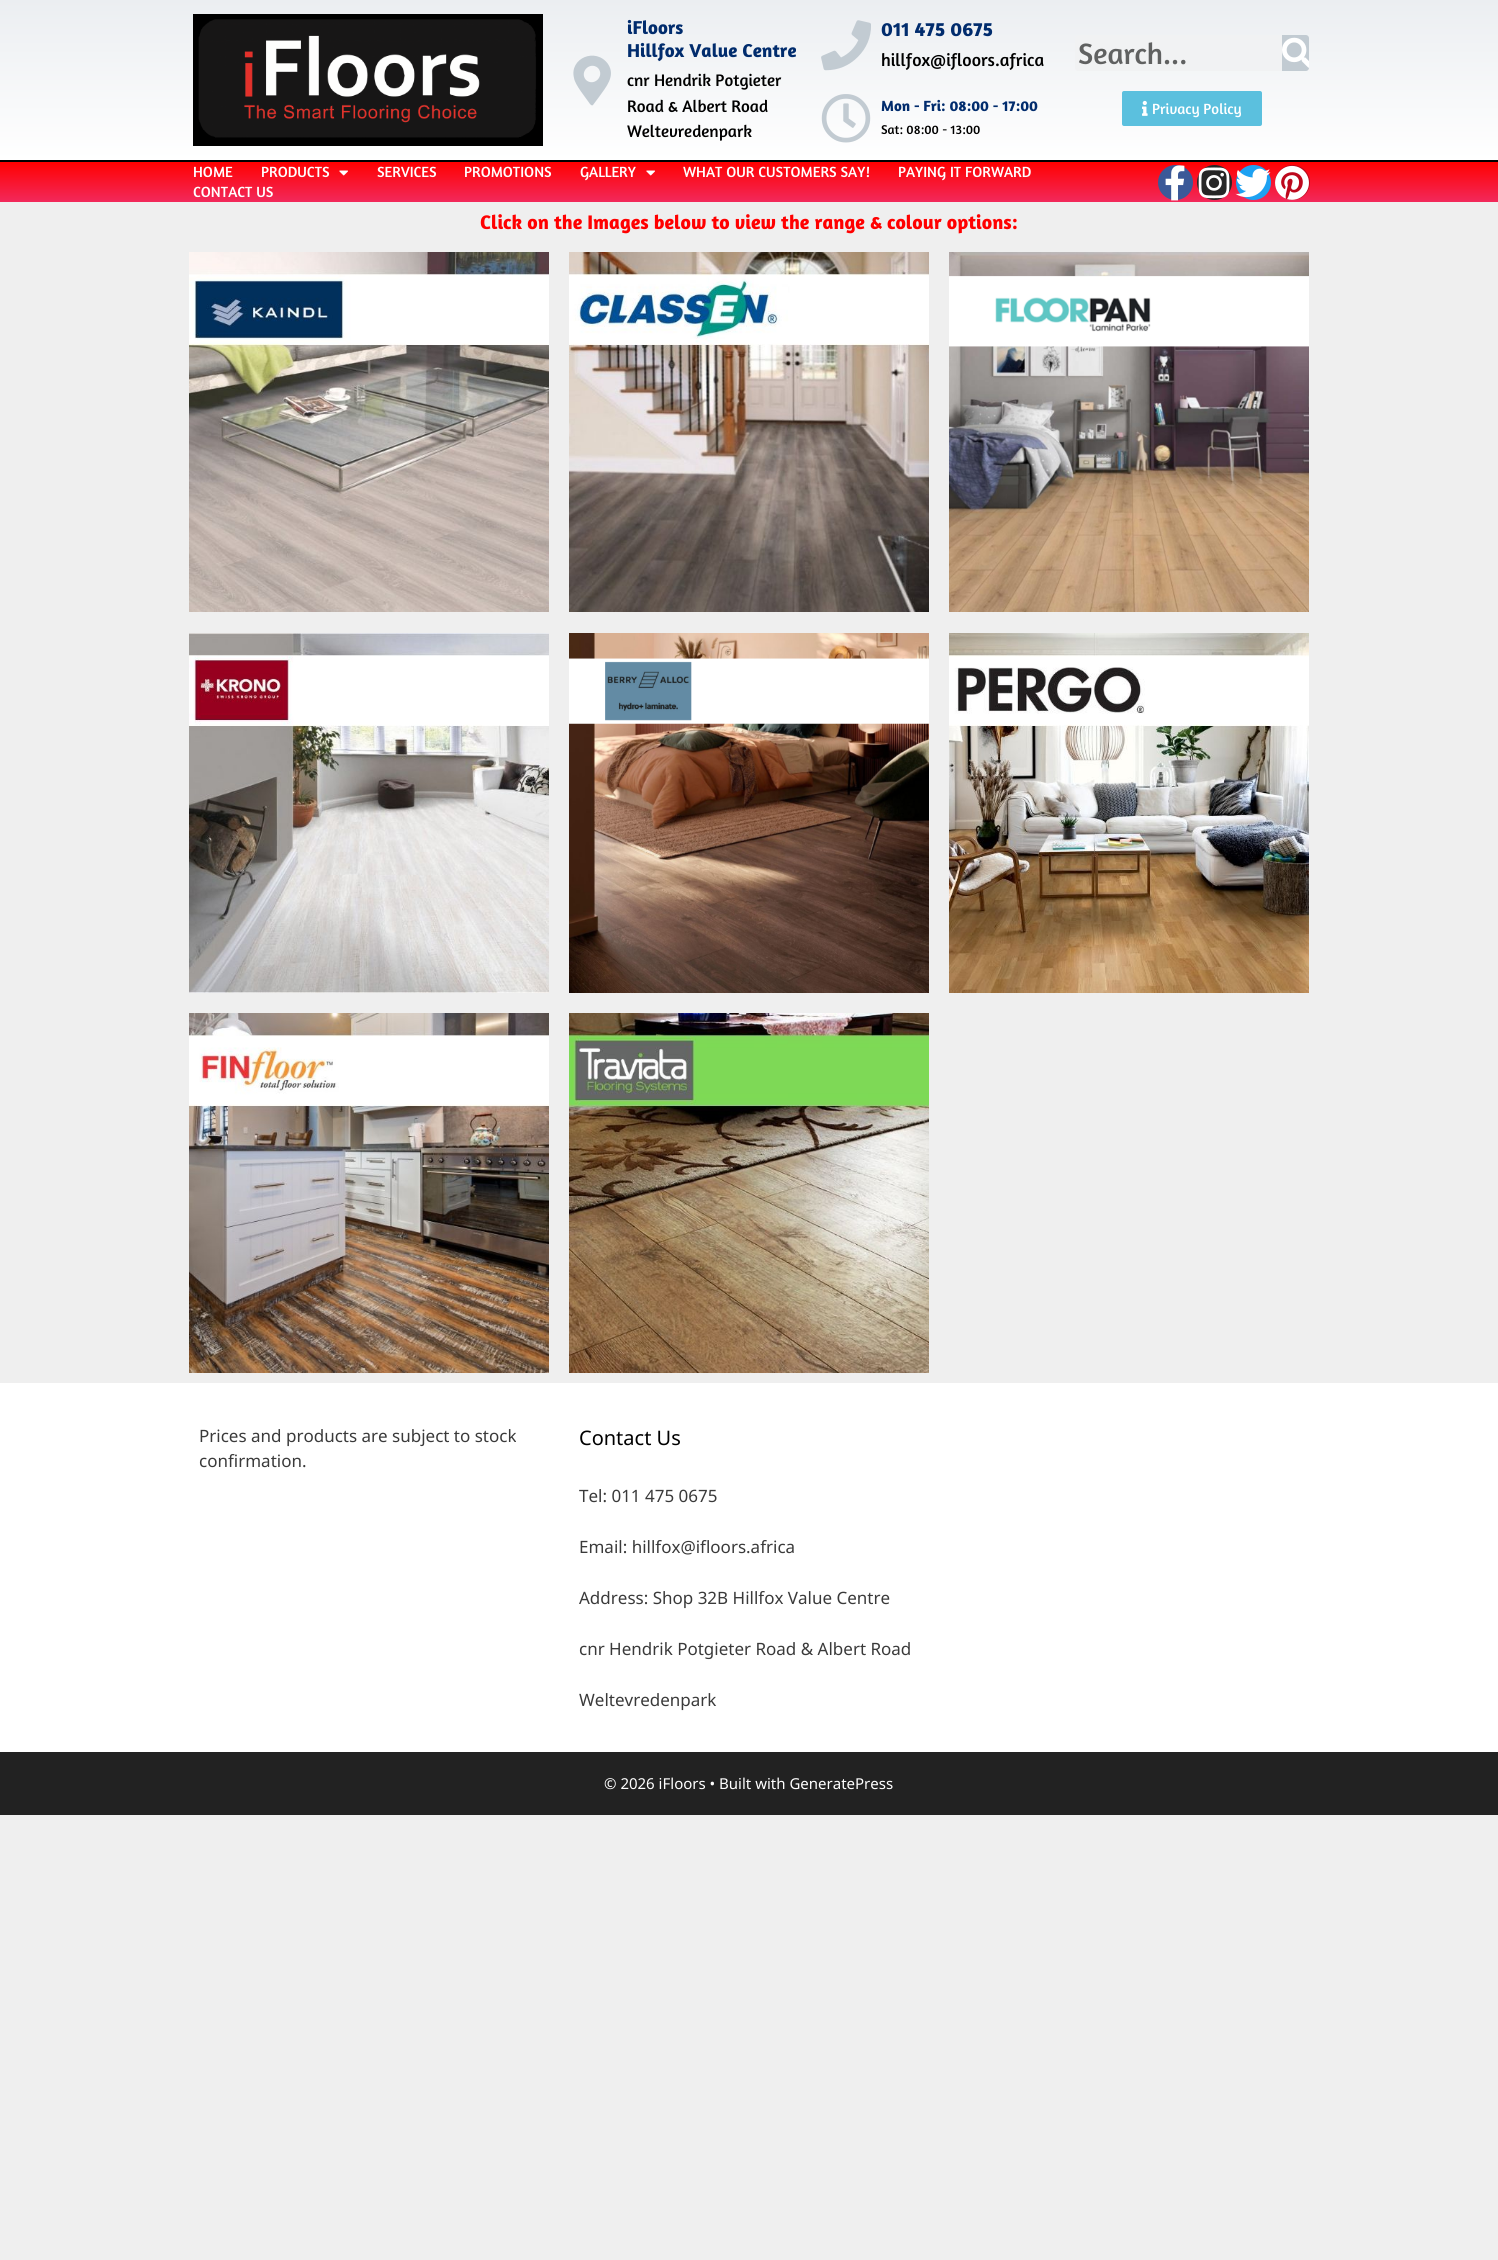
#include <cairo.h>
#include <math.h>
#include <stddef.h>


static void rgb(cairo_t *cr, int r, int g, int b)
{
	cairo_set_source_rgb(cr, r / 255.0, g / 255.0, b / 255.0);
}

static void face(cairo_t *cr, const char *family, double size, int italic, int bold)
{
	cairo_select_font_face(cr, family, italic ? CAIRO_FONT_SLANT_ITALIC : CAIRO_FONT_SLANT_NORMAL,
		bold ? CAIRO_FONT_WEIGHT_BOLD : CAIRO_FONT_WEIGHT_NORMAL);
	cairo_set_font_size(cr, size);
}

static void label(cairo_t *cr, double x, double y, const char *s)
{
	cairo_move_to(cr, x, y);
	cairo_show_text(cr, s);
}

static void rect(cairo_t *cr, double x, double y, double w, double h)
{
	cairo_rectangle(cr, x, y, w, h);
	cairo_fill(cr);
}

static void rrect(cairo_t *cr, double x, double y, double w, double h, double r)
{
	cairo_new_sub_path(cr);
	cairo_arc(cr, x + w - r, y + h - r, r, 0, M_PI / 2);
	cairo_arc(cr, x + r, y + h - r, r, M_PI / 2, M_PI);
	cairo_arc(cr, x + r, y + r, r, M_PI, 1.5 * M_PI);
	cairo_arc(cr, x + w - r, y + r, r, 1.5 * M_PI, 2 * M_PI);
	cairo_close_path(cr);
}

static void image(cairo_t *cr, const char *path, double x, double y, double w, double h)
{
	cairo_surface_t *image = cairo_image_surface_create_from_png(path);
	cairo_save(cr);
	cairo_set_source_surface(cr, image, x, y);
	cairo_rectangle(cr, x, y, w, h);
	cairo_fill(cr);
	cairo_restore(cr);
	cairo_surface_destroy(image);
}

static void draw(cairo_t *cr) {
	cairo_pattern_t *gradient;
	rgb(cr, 239, 239, 239);
	cairo_paint(cr);
	gradient = cairo_pattern_create_linear(749, 0, 749, 160);
	cairo_pattern_add_color_stop_rgba(gradient, 0, 0.922, 0.933, 0.945, 1);
	cairo_pattern_add_color_stop_rgba(gradient, 1, 1, 1, 1, 1);
	cairo_set_source(cr, gradient);
	cairo_pattern_destroy(gradient);
	rect(cr, 0, 0, 1498, 160);
	image(cr, "image0.png", 193, 14, 350, 132);
	rgb(cr, 194, 203, 210);
	cairo_new_path(cr);
	cairo_move_to(cr, 590, 104);
	cairo_curve_to(cr, 586, 98, 575, 85, 574, 78);
	cairo_curve_to(cr, 569, 58, 596, 47, 608, 64);
	cairo_curve_to(cr, 616, 76, 606, 87, 599, 97);
	cairo_line_to(cr, 593, 105);
	cairo_curve_to(cr, 592, 106, 591, 105, 590, 104);
	cairo_close_path(cr);
	cairo_move_to(cr, 586, 80);
	cairo_curve_to(cr, 594, 87, 605, 76, 598, 68);
	cairo_curve_to(cr, 590, 61, 579, 72, 586, 80);
	cairo_close_path(cr);
	cairo_fill(cr);
	face(cr, "Amaranth", 19, 0, 1);
	rgb(cr, 1, 44, 109);
	label(cr, 627, 34, "iFloors");
	label(cr, 627, 57, "Hillfox Value Centre");
	face(cr, "Amaranth", 17, 0, 0);
	rgb(cr, 0, 0, 0);
	label(cr, 627, 86, "cnr Hendrik Potgieter");
	label(cr, 627, 112, "Road & Albert Road");
	label(cr, 627, 137, "Weltevredenpark");
	image(cr, "image1.png", 821, 20, 50, 51);
	face(cr, "Amaranth", 20, 0, 1);
	rgb(cr, 1, 44, 109);
	label(cr, 881, 36, "011 475 0675");
	face(cr, "Amaranth", 18, 0, 0);
	rgb(cr, 0, 0, 0);
	label(cr, 881, 66, "hillfox@ifloors.africa");
	image(cr, "image2.png", 821, 94, 50, 49);
	face(cr, "Amaranth", 15, 0, 1);
	rgb(cr, 1, 44, 109);
	label(cr, 881, 111, "Mon - Fri: 08:00 - 17:00");
	face(cr, "Amaranth", 13, 0, 0);
	rgb(cr, 0, 0, 0);
	label(cr, 881, 134, "Sat: 08:00 - 13:00");
	rgb(cr, 241, 242, 243);
	rrect(cr, 1075, 35, 234, 36, 3);
	cairo_fill(cr);
	face(cr, "Amaranth", 30, 0, 0);
	rgb(cr, 96, 97, 97);
	label(cr, 1078, 64, "Search...");
	rgb(cr, 194, 203, 210);
	cairo_new_path(cr);
	cairo_move_to(cr, 1282, 35);
	cairo_line_to(cr, 1306, 35);
	cairo_curve_to(cr, 1307.5, 35, 1309, 36.5, 1309, 38);
	cairo_line_to(cr, 1309, 68);
	cairo_curve_to(cr, 1309, 69.5, 1307.5, 71, 1306, 71);
	cairo_line_to(cr, 1282, 71);
	cairo_close_path(cr);
	cairo_fill(cr);
	image(cr, "image3.png", 1282, 37, 27, 31);
	rgb(cr, 91, 192, 222);
	rrect(cr, 1122, 91, 140, 35, 2);
	cairo_fill(cr);
	image(cr, "image4.png", 1142, 100, 6, 16);
	face(cr, "Amaranth", 15, 0, 0);
	rgb(cr, 255, 255, 255);
	label(cr, 1152, 114, "Privacy Policy");
	gradient = cairo_pattern_create_linear(749, 162, 749, 202);
	cairo_pattern_add_color_stop_rgba(gradient, 0, 1, 0, 0, 1);
	cairo_pattern_add_color_stop_rgba(gradient, 1, 0.949, 0.161, 0.357, 1);
	cairo_set_source(cr, gradient);
	cairo_pattern_destroy(gradient);
	rect(cr, 0, 162, 1498, 40);
	rgb(cr, 0, 0, 0);
	rect(cr, 0, 160, 1498, 2);
	rgb(cr, 255, 255, 255);
	label(cr, 193, 177, "HOME");
	label(cr, 261, 177, "PRODUCTS");
	image(cr, "image5.png", 339, 170, 9, 6);
	label(cr, 377, 177, "SERVICES");
	label(cr, 464, 177, "PROMOTIONS");
	label(cr, 580, 177, "GALLERY");
	image(cr, "image5.png", 646, 170, 9, 6);
	label(cr, 683, 177, "WHAT OUR CUSTOMERS SAY!");
	label(cr, 898, 177, "PAYING IT FORWARD");
	label(cr, 193, 197, "CONTACT US");
	rgb(cr, 59, 89, 152);
	cairo_new_path(cr);
	cairo_arc(cr, 1175.5, 182.5, 17.5, 0, 2 * M_PI);
	cairo_fill(cr);
	image(cr, "image6.png", 1165, 165, 20, 36);
	rgb(cr, 38, 38, 38);
	cairo_arc(cr, 1214.5, 182.5, 17.5, 0, 2 * M_PI);
	cairo_fill(cr);
	image(cr, "image7.png", 1198, 167, 32, 32);
	rgb(cr, 29, 161, 242);
	cairo_arc(cr, 1253.5, 182.5, 17.5, 0, 2 * M_PI);
	cairo_fill(cr);
	image(cr, "image8.png", 1235, 168, 36, 30);
	rgb(cr, 189, 8, 28);
	cairo_arc(cr, 1292.5, 182.5, 17.5, 0, 2 * M_PI);
	cairo_fill(cr);
	image(cr, "image9.png", 1275, 165, 34, 35);
	face(cr, "Amaranth", 20, 0, 1);
	rgb(cr, 255, 0, 0);
	label(cr, 480, 229, "Click on the Images below to view the range & colour options:");
	image(cr, "image10.png", 189, 252, 360, 360);
	image(cr, "image11.png", 569, 252, 360, 360);
	image(cr, "image12.png", 949, 252, 360, 360);
	image(cr, "image13.png", 189, 633, 360, 360);
	image(cr, "image14.png", 569, 633, 360, 360);
	image(cr, "image15.png", 949, 633, 360, 360);
	image(cr, "image16.png", 189, 1013, 360, 360);
	image(cr, "image17.png", 569, 1013, 360, 360);
	rgb(cr, 255, 255, 255);
	rect(cr, 0, 1383, 1498, 369);
	face(cr, "Noto Sans", 17, 0, 0);
	rgb(cr, 58, 58, 58);
	label(cr, 199, 1442, "Prices and products are subject to stock");
	label(cr, 199, 1467, "confirmation.");
	face(cr, "Noto Sans", 20, 0, 0);
	rgb(cr, 0, 0, 0);
	label(cr, 579, 1445, "Contact Us");
	face(cr, "Noto Sans", 17, 0, 0);
	rgb(cr, 58, 58, 58);
	label(cr, 579, 1502, "Tel: 011 475 0675");
	label(cr, 579, 1553, "Email: hillfox@ifloors.africa");
	label(cr, 579, 1604, "Address: Shop 32B Hillfox Value Centre");
	label(cr, 579, 1655, "cnr Hendrik Potgieter Road & Albert Road");
	label(cr, 579, 1706, "Weltevredenpark");
	rgb(cr, 34, 34, 34);
	rect(cr, 0, 1752, 1498, 63);
	face(cr, "Noto Sans", 15, 0, 0);
	rgb(cr, 255, 255, 255);
	label(cr, 604, 1789, "© 2026 iFloors • Built with GeneratePress");
}

int main(void) {
	cairo_surface_t *surface = cairo_image_surface_create(CAIRO_FORMAT_RGB24, 1498, 2260);
	cairo_t *cr = cairo_create(surface);
	cairo_font_options_t *options = cairo_font_options_create();
	cairo_font_options_set_hint_metrics(options, CAIRO_HINT_METRICS_OFF);
	cairo_font_options_set_hint_style(options, CAIRO_HINT_STYLE_NONE);
	cairo_set_font_options(cr, options);
	cairo_set_miter_limit(cr, 4);
	draw(cr);
	cairo_surface_write_to_png(surface, "render.png");
	cairo_font_options_destroy(options);
	cairo_destroy(cr);
	cairo_surface_destroy(surface);
	return 0;
}
